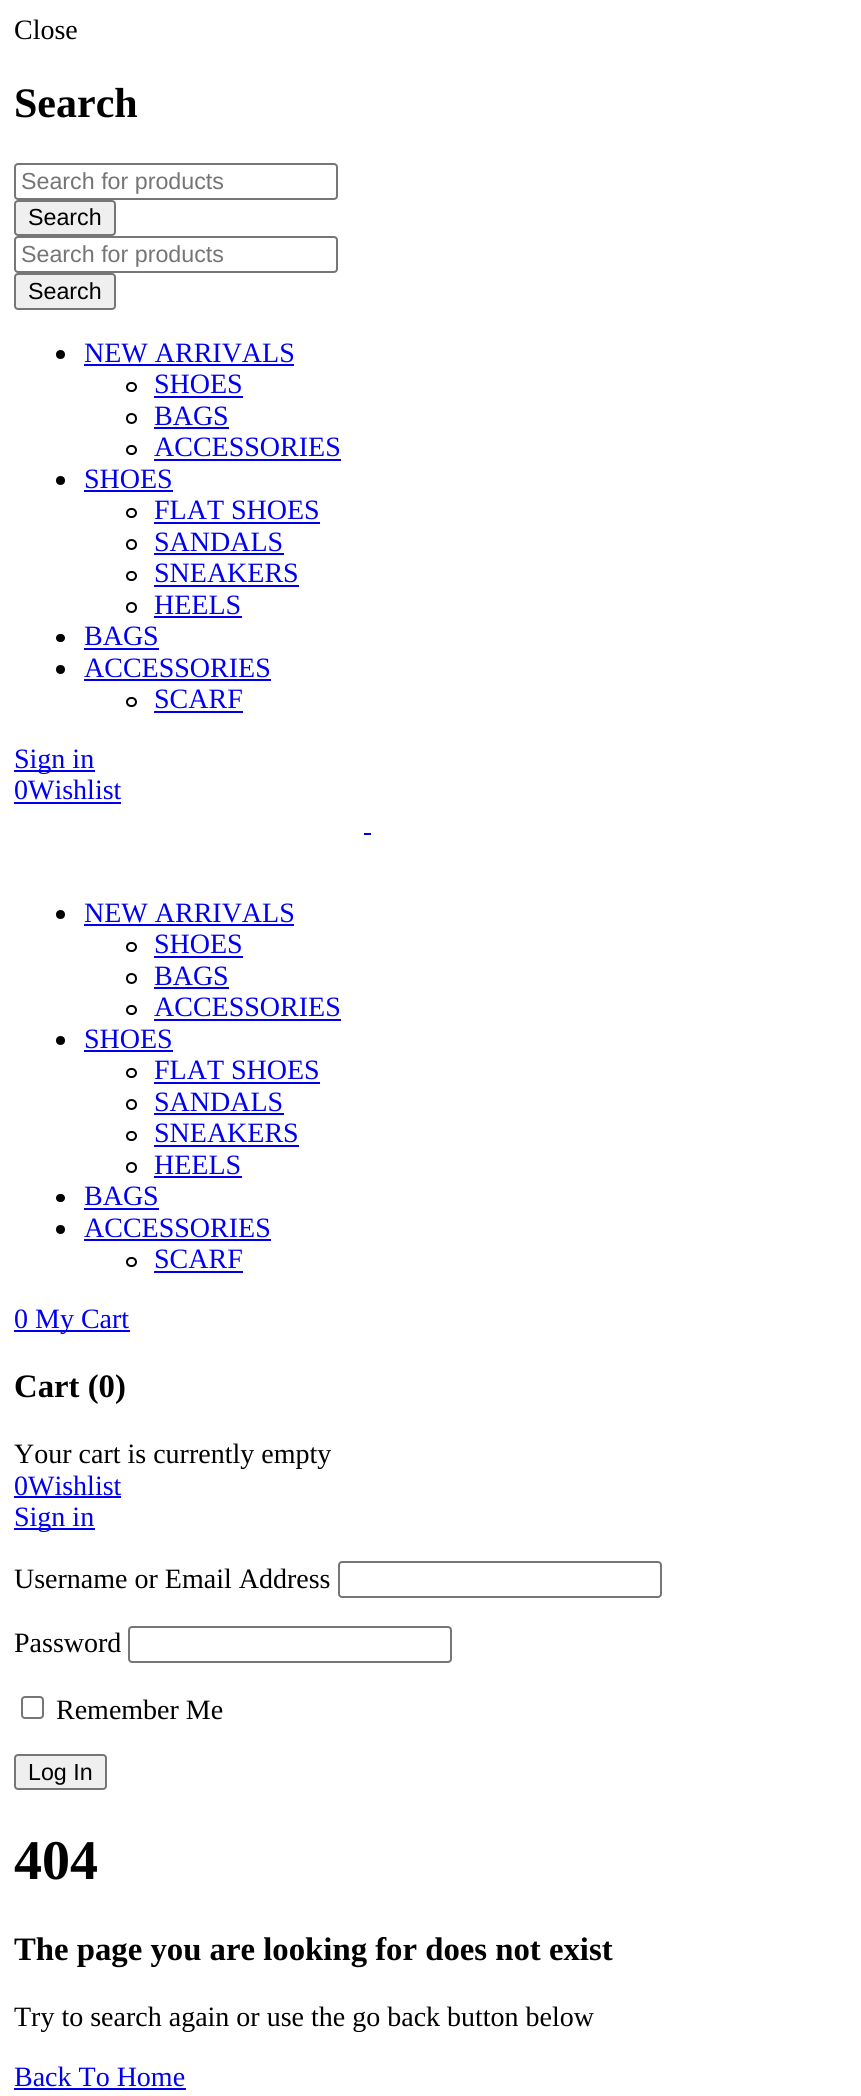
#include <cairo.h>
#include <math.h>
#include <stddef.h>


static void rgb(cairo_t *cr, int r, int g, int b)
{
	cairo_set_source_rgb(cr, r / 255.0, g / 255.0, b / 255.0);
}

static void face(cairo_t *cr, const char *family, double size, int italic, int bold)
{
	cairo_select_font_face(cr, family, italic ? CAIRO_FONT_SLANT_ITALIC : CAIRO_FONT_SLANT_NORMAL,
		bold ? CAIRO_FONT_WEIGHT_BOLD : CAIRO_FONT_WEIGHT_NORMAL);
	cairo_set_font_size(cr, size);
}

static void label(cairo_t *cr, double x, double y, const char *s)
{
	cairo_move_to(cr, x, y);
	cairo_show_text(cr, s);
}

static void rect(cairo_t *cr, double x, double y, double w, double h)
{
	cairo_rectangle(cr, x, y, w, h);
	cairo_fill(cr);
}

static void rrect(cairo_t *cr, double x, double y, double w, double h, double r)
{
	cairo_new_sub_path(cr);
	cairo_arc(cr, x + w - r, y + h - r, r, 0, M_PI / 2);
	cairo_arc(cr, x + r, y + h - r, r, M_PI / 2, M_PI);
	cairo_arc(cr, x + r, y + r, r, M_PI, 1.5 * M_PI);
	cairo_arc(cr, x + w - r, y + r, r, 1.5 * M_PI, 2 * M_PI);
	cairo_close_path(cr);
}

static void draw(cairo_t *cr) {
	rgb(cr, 255, 255, 255);
	cairo_paint(cr);
	face(cr, "Liberation Serif", 28, 0, 0);
	rgb(cr, 0, 0, 0);
	label(cr, 14, 39, "Close");
	face(cr, "Liberation Serif", 42, 0, 1);
	label(cr, 14, 117, "Search");
	rrect(cr, 15, 164, 322, 35, 3);
	rgb(cr, 118, 118, 118);
	cairo_stroke(cr);
	face(cr, "Liberation Sans", 23.25, 0, 0);
	rgb(cr, 117, 117, 117);
	label(cr, 21, 189, "Search for products");
	rgb(cr, 239, 239, 239);
	rrect(cr, 15, 201, 100, 34, 3);
	cairo_fill_preserve(cr);
	rgb(cr, 118, 118, 118);
	cairo_stroke(cr);
	rgb(cr, 0, 0, 0);
	label(cr, 28, 225, "Search");
	rrect(cr, 15, 237, 322, 35, 3);
	rgb(cr, 118, 118, 118);
	cairo_stroke(cr);
	rgb(cr, 117, 117, 117);
	label(cr, 21, 262, "Search for products");
	rgb(cr, 239, 239, 239);
	rrect(cr, 15, 274, 100, 35, 3);
	cairo_fill_preserve(cr);
	rgb(cr, 118, 118, 118);
	cairo_stroke(cr);
	rgb(cr, 0, 0, 0);
	label(cr, 28, 299, "Search");
	cairo_new_path(cr);
	cairo_arc(cr, 60.5, 354.5, 4.5, 0, 2 * M_PI);
	cairo_fill(cr);
	face(cr, "Liberation Serif", 28, 0, 0);
	rgb(cr, 0, 0, 238);
	label(cr, 84, 362, "NEW ARRIVALS");
	rect(cr, 84, 364, 210, 2);
	rrect(cr, 127, 383, 9, 8, 4);
	rgb(cr, 0, 0, 0);
	cairo_stroke(cr);
	rgb(cr, 0, 0, 238);
	label(cr, 154, 393, "SHOES");
	rect(cr, 154, 396, 89, 2);
	cairo_new_path(cr);
	cairo_arc(cr, 131.5, 418.5, 4.5, 0, 2 * M_PI);
	rgb(cr, 0, 0, 0);
	cairo_stroke(cr);
	rgb(cr, 0, 0, 238);
	label(cr, 154, 425, "BAGS");
	rect(cr, 154, 427, 75, 2);
	rrect(cr, 127, 446, 9, 8, 4);
	rgb(cr, 0, 0, 0);
	cairo_stroke(cr);
	rgb(cr, 0, 0, 238);
	label(cr, 154, 456, "ACCESSORIES");
	rect(cr, 154, 459, 187, 2);
	rgb(cr, 0, 0, 0);
	cairo_new_path(cr);
	cairo_arc(cr, 60.5, 480.5, 4.5, 0, 2 * M_PI);
	cairo_fill(cr);
	rgb(cr, 0, 0, 238);
	label(cr, 84, 488, "SHOES");
	rect(cr, 84, 490, 89, 2);
	rrect(cr, 127, 509, 9, 8, 4);
	rgb(cr, 0, 0, 0);
	cairo_stroke(cr);
	rgb(cr, 0, 0, 238);
	label(cr, 154, 519, "FLAT SHOES");
	rect(cr, 154, 522, 166, 2);
	cairo_new_path(cr);
	cairo_arc(cr, 131.5, 544.5, 4.5, 0, 2 * M_PI);
	rgb(cr, 0, 0, 0);
	cairo_stroke(cr);
	rgb(cr, 0, 0, 238);
	label(cr, 154, 551, "SANDALS");
	rect(cr, 154, 553, 130, 2);
	rrect(cr, 127, 572, 9, 8, 4);
	rgb(cr, 0, 0, 0);
	cairo_stroke(cr);
	rgb(cr, 0, 0, 238);
	label(cr, 154, 582, "SNEAKERS");
	rect(cr, 154, 585, 145, 2);
	cairo_new_path(cr);
	cairo_arc(cr, 131.5, 607.5, 4.5, 0, 2 * M_PI);
	rgb(cr, 0, 0, 0);
	cairo_stroke(cr);
	rgb(cr, 0, 0, 238);
	label(cr, 154, 614, "HEELS");
	rect(cr, 154, 616, 88, 2);
	rgb(cr, 0, 0, 0);
	rrect(cr, 56, 634, 9, 8, 4);
	cairo_fill(cr);
	rgb(cr, 0, 0, 238);
	label(cr, 84, 645, "BAGS");
	rect(cr, 84, 648, 75, 2);
	rgb(cr, 0, 0, 0);
	cairo_new_path(cr);
	cairo_arc(cr, 60.5, 669.5, 4.5, 0, 2 * M_PI);
	cairo_fill(cr);
	rgb(cr, 0, 0, 238);
	label(cr, 84, 677, "ACCESSORIES");
	rect(cr, 84, 679, 187, 2);
	rrect(cr, 127, 698, 9, 8, 4);
	rgb(cr, 0, 0, 0);
	cairo_stroke(cr);
	rgb(cr, 0, 0, 238);
	label(cr, 154, 708, "SCARF");
	rect(cr, 154, 711, 89, 2);
	rect(cr, 14, 770, 81, 2);
	label(cr, 14, 768, "Sign in");
	label(cr, 14, 799, "0Wishlist");
	rect(cr, 14, 802, 107, 2);
	rect(cr, 364, 833, 7, 2);
	rgb(cr, 0, 0, 0);
	cairo_new_path(cr);
	cairo_arc(cr, 60.5, 914.5, 4.5, 0, 2 * M_PI);
	cairo_fill(cr);
	rgb(cr, 0, 0, 238);
	label(cr, 84, 922, "NEW ARRIVALS");
	rect(cr, 84, 924, 210, 2);
	rrect(cr, 127, 943, 9, 8, 4);
	rgb(cr, 0, 0, 0);
	cairo_stroke(cr);
	rgb(cr, 0, 0, 238);
	label(cr, 154, 953, "SHOES");
	rect(cr, 154, 956, 89, 2);
	cairo_new_path(cr);
	cairo_arc(cr, 131.5, 978.5, 4.5, 0, 2 * M_PI);
	rgb(cr, 0, 0, 0);
	cairo_stroke(cr);
	rgb(cr, 0, 0, 238);
	label(cr, 154, 985, "BAGS");
	rect(cr, 154, 987, 75, 2);
	rrect(cr, 127, 1006, 9, 8, 4);
	rgb(cr, 0, 0, 0);
	cairo_stroke(cr);
	rgb(cr, 0, 0, 238);
	label(cr, 154, 1016, "ACCESSORIES");
	rect(cr, 154, 1019, 187, 2);
	rgb(cr, 0, 0, 0);
	cairo_new_path(cr);
	cairo_arc(cr, 60.5, 1040.5, 4.5, 0, 2 * M_PI);
	cairo_fill(cr);
	rgb(cr, 0, 0, 238);
	label(cr, 84, 1048, "SHOES");
	rect(cr, 84, 1050, 89, 2);
	rrect(cr, 127, 1069, 9, 8, 4);
	rgb(cr, 0, 0, 0);
	cairo_stroke(cr);
	rgb(cr, 0, 0, 238);
	label(cr, 154, 1079, "FLAT SHOES");
	rect(cr, 154, 1082, 166, 2);
	cairo_new_path(cr);
	cairo_arc(cr, 131.5, 1104.5, 4.5, 0, 2 * M_PI);
	rgb(cr, 0, 0, 0);
	cairo_stroke(cr);
	rgb(cr, 0, 0, 238);
	label(cr, 154, 1111, "SANDALS");
	rect(cr, 154, 1113, 130, 2);
	rrect(cr, 127, 1132, 9, 8, 4);
	rgb(cr, 0, 0, 0);
	cairo_stroke(cr);
	rgb(cr, 0, 0, 238);
	label(cr, 154, 1142, "SNEAKERS");
	rect(cr, 154, 1145, 145, 2);
	cairo_new_path(cr);
	cairo_arc(cr, 131.5, 1167.5, 4.5, 0, 2 * M_PI);
	rgb(cr, 0, 0, 0);
	cairo_stroke(cr);
	rgb(cr, 0, 0, 238);
	label(cr, 154, 1174, "HEELS");
	rect(cr, 154, 1176, 88, 2);
	rgb(cr, 0, 0, 0);
	rrect(cr, 56, 1194, 9, 8, 4);
	cairo_fill(cr);
	rgb(cr, 0, 0, 238);
	label(cr, 84, 1205, "BAGS");
	rect(cr, 84, 1208, 75, 2);
	rgb(cr, 0, 0, 0);
	cairo_new_path(cr);
	cairo_arc(cr, 60.5, 1229.5, 4.5, 0, 2 * M_PI);
	cairo_fill(cr);
	rgb(cr, 0, 0, 238);
	label(cr, 84, 1237, "ACCESSORIES");
	rect(cr, 84, 1239, 187, 2);
	rrect(cr, 127, 1258, 9, 8, 4);
	rgb(cr, 0, 0, 0);
	cairo_stroke(cr);
	rgb(cr, 0, 0, 238);
	label(cr, 154, 1268, "SCARF");
	rect(cr, 154, 1271, 89, 2);
	rect(cr, 14, 1330, 116, 2);
	label(cr, 14, 1328, "0 My Cart");
	face(cr, "Liberation Serif", 32.75, 0, 1);
	rgb(cr, 0, 0, 0);
	label(cr, 14, 1397, "Cart (0)");
	face(cr, "Liberation Serif", 28, 0, 0);
	label(cr, 14, 1463, "Your cart is currently empty");
	rgb(cr, 0, 0, 238);
	label(cr, 14, 1495, "0Wishlist");
	rect(cr, 14, 1496, 107, 2);
	rect(cr, 14, 1528, 81, 2);
	label(cr, 14, 1526, "Sign in");
	rgb(cr, 0, 0, 0);
	label(cr, 14, 1588, "Username or Email Address");
	rrect(cr, 339, 1562, 322, 35, 3);
	rgb(cr, 118, 118, 118);
	cairo_stroke(cr);
	rgb(cr, 0, 0, 0);
	label(cr, 14, 1652, "Password");
	rrect(cr, 129, 1627, 322, 35, 3);
	rgb(cr, 118, 118, 118);
	cairo_stroke(cr);
	rrect(cr, 22, 1697, 21, 21, 3);
	cairo_stroke(cr);
	rgb(cr, 0, 0, 0);
	label(cr, 56, 1719, "Remember Me");
	rgb(cr, 239, 239, 239);
	rrect(cr, 15, 1755, 91, 34, 3);
	cairo_fill_preserve(cr);
	rgb(cr, 118, 118, 118);
	cairo_stroke(cr);
	face(cr, "Liberation Sans", 23.25, 0, 0);
	rgb(cr, 0, 0, 0);
	label(cr, 28, 1780, "Log In");
	face(cr, "Liberation Serif", 56, 0, 1);
	label(cr, 14, 1879, "404");
	face(cr, "Liberation Serif", 32.75, 0, 1);
	label(cr, 14, 1960, "The page you are looking for does not exist");
	face(cr, "Liberation Serif", 28, 0, 0);
	label(cr, 14, 2026, "Try to search again or use the go back button below");
	rgb(cr, 0, 0, 238);
	label(cr, 14, 2086, "Back To Home");
	rect(cr, 14, 2088, 172, 2);
}

int main(void) {
	cairo_surface_t *surface = cairo_image_surface_create(CAIRO_FORMAT_RGB24, 861, 2096);
	cairo_t *cr = cairo_create(surface);
	cairo_font_options_t *options = cairo_font_options_create();
	cairo_font_options_set_hint_metrics(options, CAIRO_HINT_METRICS_OFF);
	cairo_font_options_set_hint_style(options, CAIRO_HINT_STYLE_NONE);
	cairo_set_font_options(cr, options);
	cairo_set_miter_limit(cr, 4);
	draw(cr);
	cairo_surface_write_to_png(surface, "render.png");
	cairo_font_options_destroy(options);
	cairo_destroy(cr);
	cairo_surface_destroy(surface);
	return 0;
}
